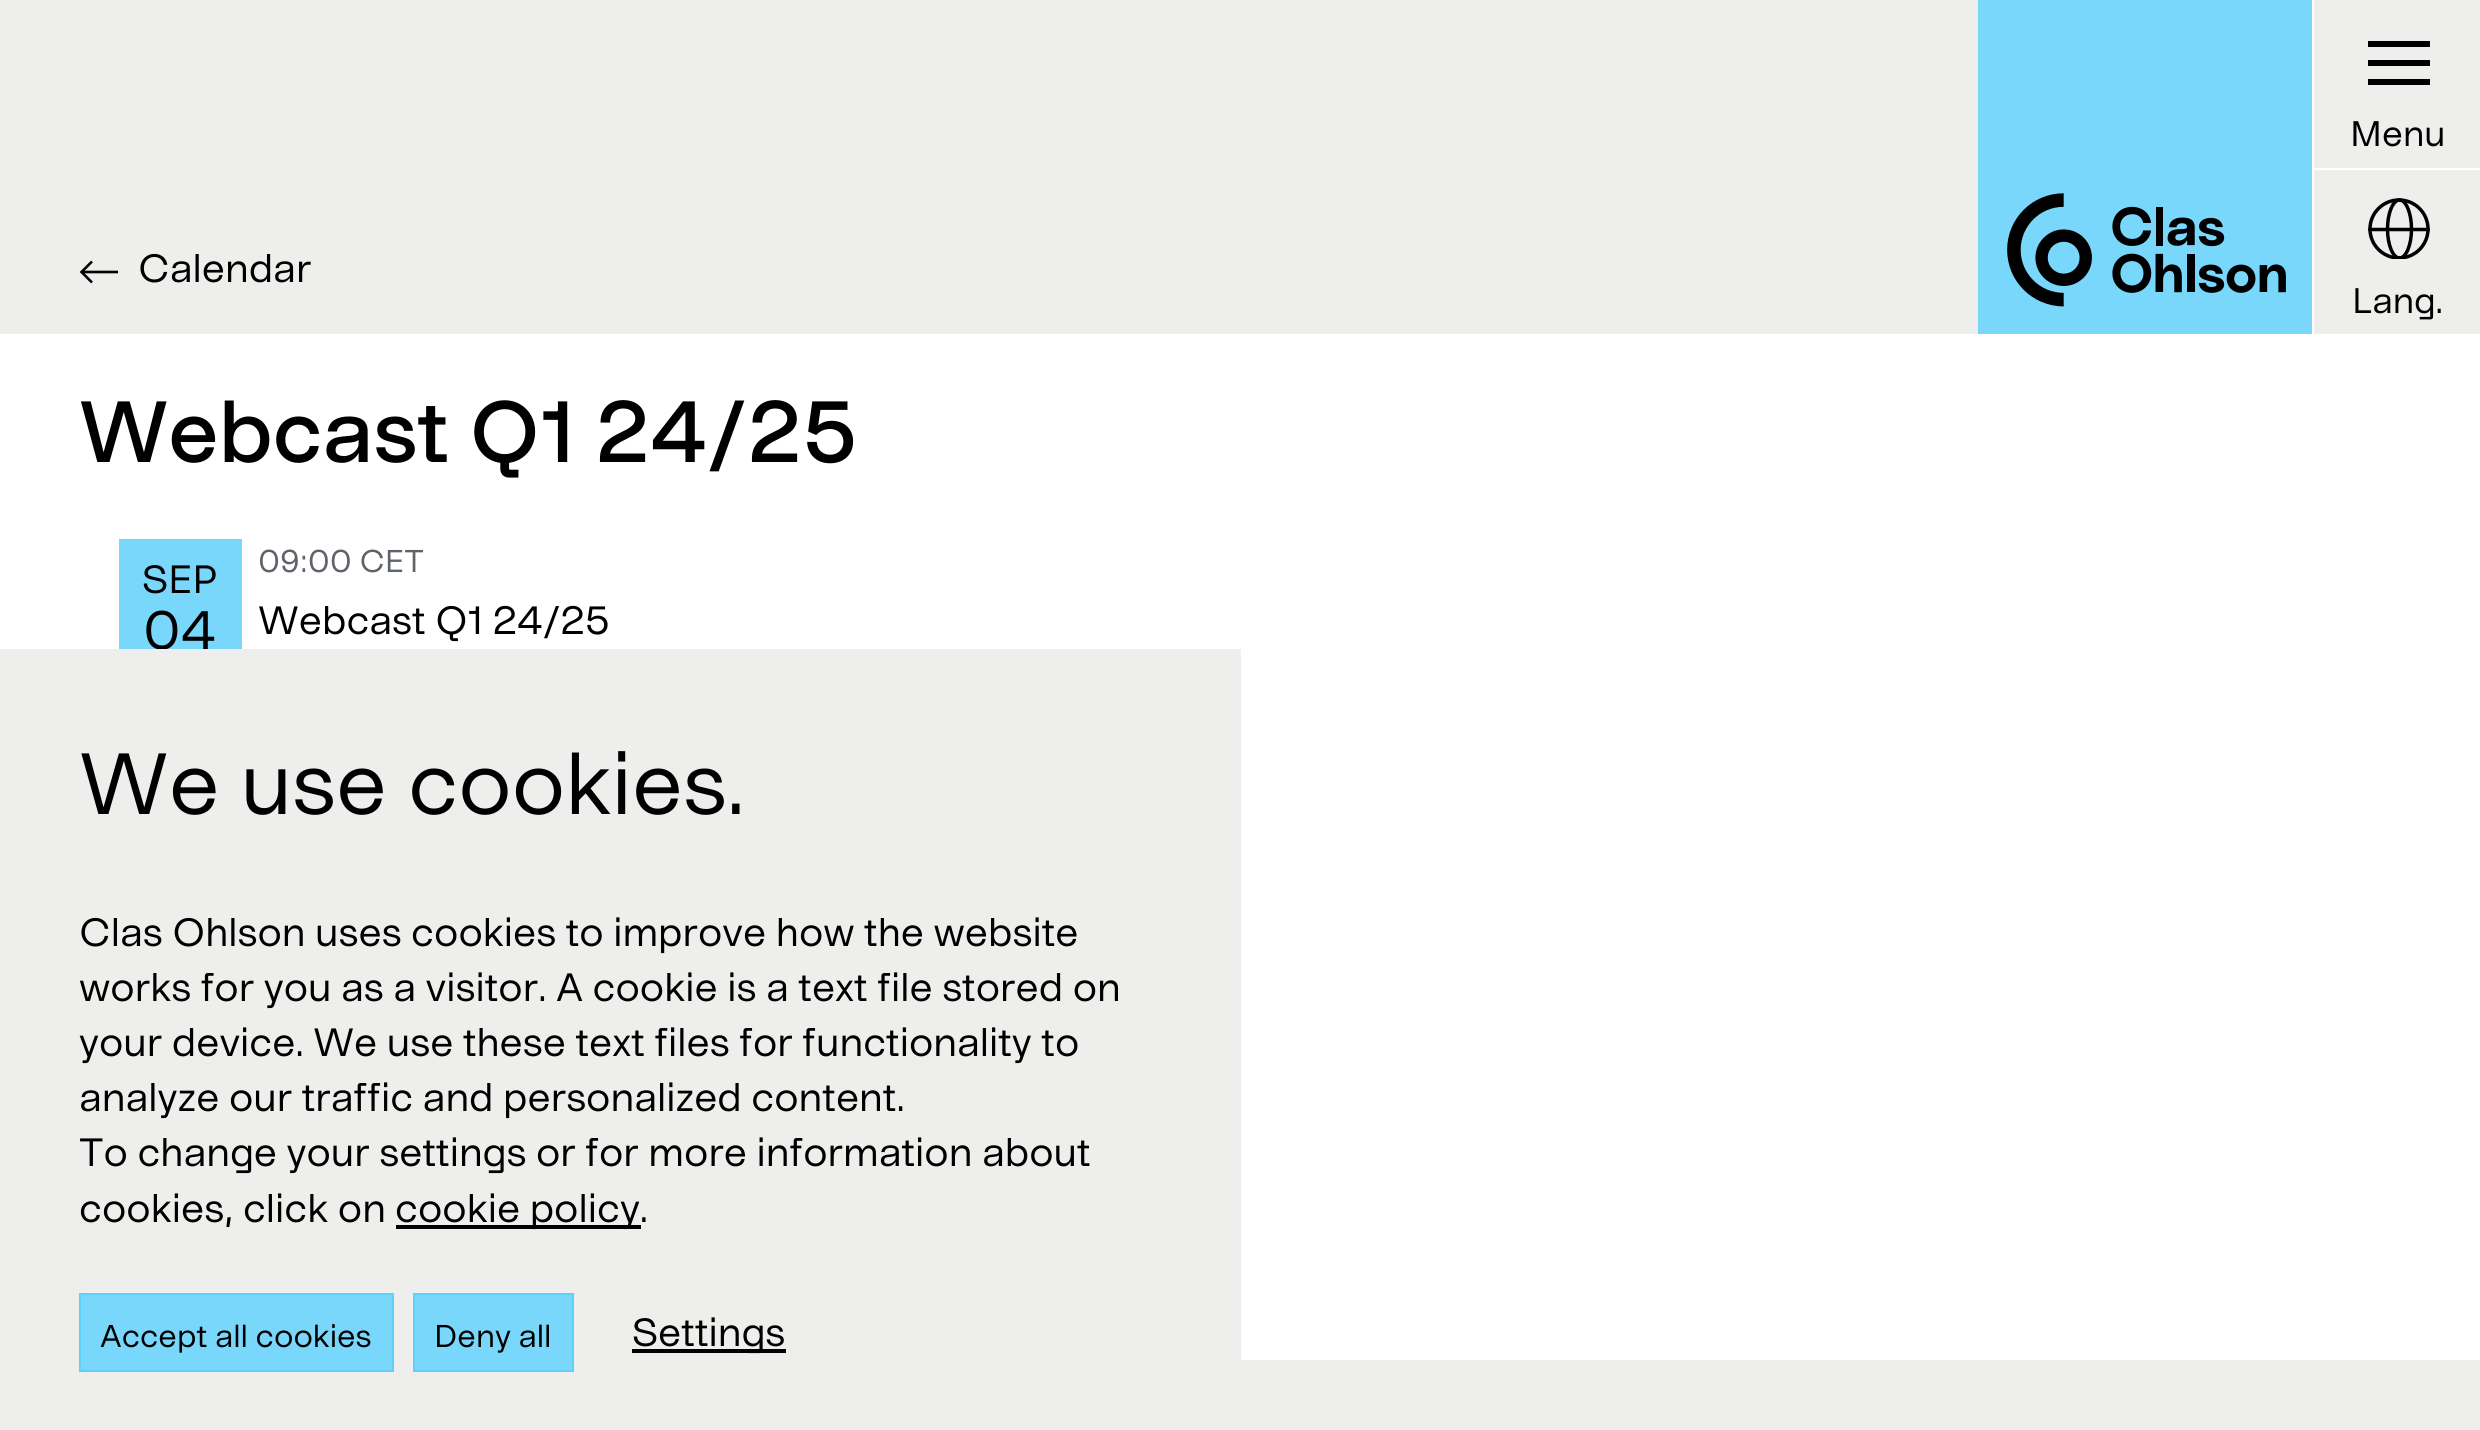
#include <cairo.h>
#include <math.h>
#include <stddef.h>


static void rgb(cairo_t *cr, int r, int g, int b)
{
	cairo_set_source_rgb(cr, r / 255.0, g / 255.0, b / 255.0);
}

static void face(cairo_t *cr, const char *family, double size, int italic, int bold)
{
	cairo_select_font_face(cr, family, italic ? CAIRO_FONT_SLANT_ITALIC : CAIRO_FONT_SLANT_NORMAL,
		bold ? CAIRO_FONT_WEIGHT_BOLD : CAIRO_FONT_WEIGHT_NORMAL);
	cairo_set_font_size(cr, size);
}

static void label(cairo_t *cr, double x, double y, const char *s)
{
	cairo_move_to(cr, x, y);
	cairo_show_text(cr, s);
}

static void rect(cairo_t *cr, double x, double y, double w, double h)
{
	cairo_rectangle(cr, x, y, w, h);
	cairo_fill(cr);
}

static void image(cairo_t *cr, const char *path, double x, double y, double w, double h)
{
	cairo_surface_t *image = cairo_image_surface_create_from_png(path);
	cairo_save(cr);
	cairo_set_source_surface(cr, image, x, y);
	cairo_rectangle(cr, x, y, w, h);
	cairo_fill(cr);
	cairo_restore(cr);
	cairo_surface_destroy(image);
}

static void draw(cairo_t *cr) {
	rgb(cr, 255, 255, 255);
	cairo_paint(cr);
	rgb(cr, 238, 238, 236);
	rect(cr, 0, 0, 2480, 334);
	rgb(cr, 120, 215, 250);
	rect(cr, 1978, 0, 334, 334);
	image(cr, "image0.png", 2007, 193, 279, 114);
	rgb(cr, 255, 255, 255);
	rect(cr, 2312, 168, 2, 166);
	rect(cr, 2312, 168, 168, 2);
	rect(cr, 2312, 0, 2, 170);
	rgb(cr, 0, 0, 0);
	rect(cr, 2368, 41, 62, 6);
	rect(cr, 2368, 60, 62, 6);
	rect(cr, 2368, 79, 62, 6);
	face(cr, "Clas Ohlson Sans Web", 35.5, 0, 0);
	label(cr, 2350, 146, "Menu");
	cairo_save(cr);
	cairo_rectangle(cr, 2368, 198, 63, 61);
	cairo_clip(cr);
	cairo_arc(cr, 2399, 229, 29, 0, 2 * M_PI);
	cairo_set_line_width(cr, 3.5);
	cairo_stroke(cr);
	cairo_new_path(cr);
	cairo_move_to(cr, 2399.5, 200);
	cairo_curve_to(cr, 2406, 200, 2411.5, 213, 2411.5, 229);
	cairo_curve_to(cr, 2411.5, 245, 2406, 258, 2399.5, 258);
	cairo_curve_to(cr, 2393, 258, 2387.5, 245, 2387.5, 229);
	cairo_curve_to(cr, 2387.5, 213, 2393, 200, 2399.5, 200);
	cairo_close_path(cr);
	cairo_stroke(cr);
	cairo_restore(cr);
	cairo_new_path(cr);
	cairo_move_to(cr, 2370, 229.5);
	cairo_line_to(cr, 2428, 229.5);
	cairo_set_line_width(cr, 3.5);
	cairo_set_line_cap(cr, CAIRO_LINE_CAP_SQUARE);
	cairo_stroke(cr);
	label(cr, 2352, 313, "Lang.");
	cairo_new_path(cr);
	cairo_move_to(cr, 92, 261.5);
	cairo_line_to(cr, 81.5, 272);
	cairo_line_to(cr, 92, 282.5);
	cairo_move_to(cr, 81.5, 272);
	cairo_line_to(cr, 118, 272);
	cairo_set_line_width(cr, 2.6);
	cairo_set_line_cap(cr, CAIRO_LINE_CAP_BUTT);
	cairo_stroke(cr);
	face(cr, "Clas Ohlson Sans Web", 39.4, 0, 0);
	label(cr, 138, 282, "Calendar");
	face(cr, "Clas Ohlson Sans Web Medium", 86.6, 0, 0);
	label(cr, 79, 462, "Webcast Q1 24/25");
	face(cr, "Clas Ohlson Sans Web", 31.5, 0, 0);
	rgb(cr, 95, 100, 106);
	label(cr, 258, 572, "09:00 CET");
	rgb(cr, 120, 215, 250);
	rect(cr, 119, 539, 123, 110);
	face(cr, "Clas Ohlson Sans Web", 39.4, 0, 0);
	rgb(cr, 0, 0, 0);
	label(cr, 142, 593, "SEP");
	face(cr, "Clas Ohlson Sans Web", 54, 0, 0);
	label(cr, 143, 649, "04");
	face(cr, "Clas Ohlson Sans Web", 39.4, 0, 0);
	label(cr, 258, 634, "Webcast Q1 24/25");
	rgb(cr, 238, 238, 236);
	rect(cr, 0, 649, 1241, 781);
	face(cr, "Clas Ohlson Sans Web", 86.6, 0, 0);
	rgb(cr, 0, 0, 0);
	label(cr, 79, 814, "We use cookies.");
	face(cr, "Clas Ohlson Sans Web", 39.4, 0, 0);
	label(cr, 79, 946, "Clas Ohlson uses cookies to improve how the website");
	label(cr, 79, 1001, "works for you as a visitor. A cookie is a text file stored on");
	label(cr, 79, 1056, "your device. We use these text files for functionality to");
	label(cr, 79, 1111, "analyze our traffic and personalized content.");
	label(cr, 79, 1166, "To change your settings or for more information about");
	label(cr, 79, 1222, "cookies, click on");
	rect(cr, 396, 1225, 245, 4);
	label(cr, 395, 1222, "cookie policy.");
	rgb(cr, 120, 215, 250);
	cairo_rectangle(cr, 80, 1294, 313, 77);
	cairo_fill_preserve(cr);
	rgb(cr, 95, 208, 249);
	cairo_set_line_width(cr, 2);
	cairo_stroke(cr);
	face(cr, "Clas Ohlson Sans Web", 31.5, 0, 0);
	rgb(cr, 0, 0, 0);
	label(cr, 100, 1347, "Accept all cookies");
	rgb(cr, 120, 215, 250);
	cairo_rectangle(cr, 414, 1294, 159, 77);
	cairo_fill_preserve(cr);
	rgb(cr, 95, 208, 249);
	cairo_stroke(cr);
	rgb(cr, 0, 0, 0);
	label(cr, 434, 1347, "Deny all");
	rect(cr, 632, 1349, 154, 4);
	face(cr, "Clas Ohlson Sans Web", 39.4, 0, 0);
	label(cr, 632, 1346, "Settings");
	rgb(cr, 238, 238, 236);
	rect(cr, 1241, 1360, 1239, 70);
}

int main(void) {
	cairo_surface_t *surface = cairo_image_surface_create(CAIRO_FORMAT_RGB24, 2480, 1430);
	cairo_t *cr = cairo_create(surface);
	cairo_font_options_t *options = cairo_font_options_create();
	cairo_font_options_set_hint_metrics(options, CAIRO_HINT_METRICS_OFF);
	cairo_font_options_set_hint_style(options, CAIRO_HINT_STYLE_NONE);
	cairo_set_font_options(cr, options);
	cairo_set_miter_limit(cr, 4);
	draw(cr);
	cairo_surface_write_to_png(surface, "render.png");
	cairo_font_options_destroy(options);
	cairo_destroy(cr);
	cairo_surface_destroy(surface);
	return 0;
}
